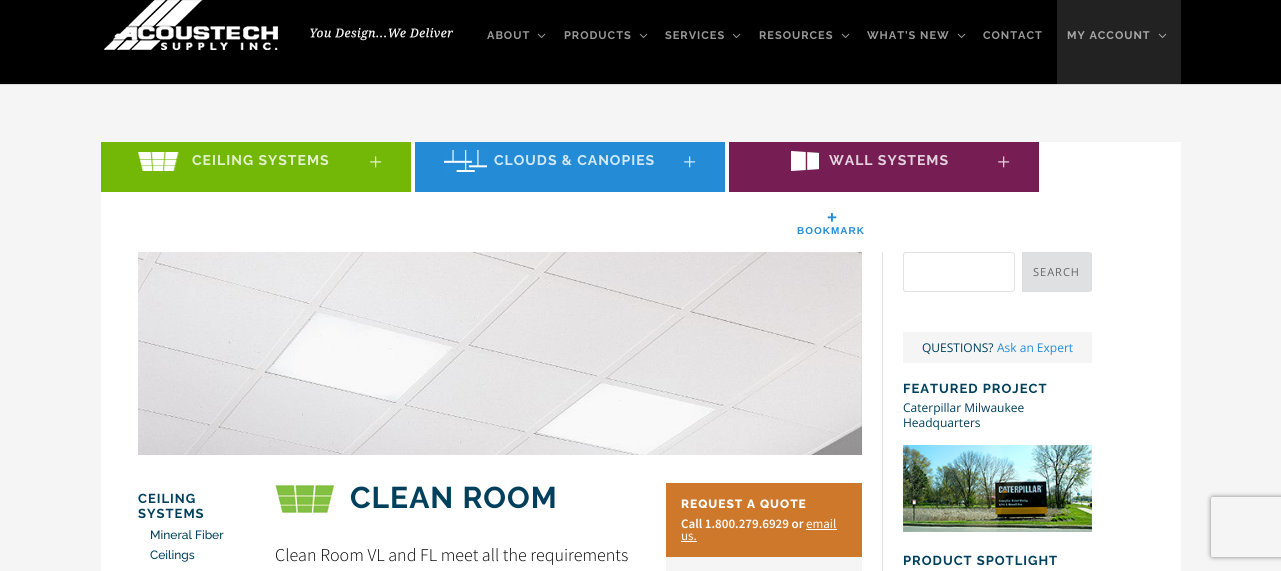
#include <cairo.h>
#include <math.h>
#include <stddef.h>


static void rgb(cairo_t *cr, int r, int g, int b)
{
	cairo_set_source_rgb(cr, r / 255.0, g / 255.0, b / 255.0);
}

static void face(cairo_t *cr, const char *family, double size, int italic, int bold)
{
	cairo_select_font_face(cr, family, italic ? CAIRO_FONT_SLANT_ITALIC : CAIRO_FONT_SLANT_NORMAL,
		bold ? CAIRO_FONT_WEIGHT_BOLD : CAIRO_FONT_WEIGHT_NORMAL);
	cairo_set_font_size(cr, size);
}

static void label(cairo_t *cr, double x, double y, const char *s)
{
	cairo_move_to(cr, x, y);
	cairo_show_text(cr, s);
}

static void tracked(cairo_t *cr, double x, double y, const char *s, double letter, double word)
{
	cairo_move_to(cr, x, y);
	while (*s) {
		char ch[5] = {0};
		int n = 0;
		do ch[n++] = *s++; while ((*s & 0xC0) == 0x80);
		cairo_show_text(cr, ch);
		cairo_rel_move_to(cr, letter + word * (*ch == ' '), 0);
	}
}

static void rect(cairo_t *cr, double x, double y, double w, double h)
{
	cairo_rectangle(cr, x, y, w, h);
	cairo_fill(cr);
}

static void rrect(cairo_t *cr, double x, double y, double w, double h, double r)
{
	cairo_new_sub_path(cr);
	cairo_arc(cr, x + w - r, y + h - r, r, 0, M_PI / 2);
	cairo_arc(cr, x + r, y + h - r, r, M_PI / 2, M_PI);
	cairo_arc(cr, x + r, y + r, r, M_PI, 1.5 * M_PI);
	cairo_arc(cr, x + w - r, y + r, r, 1.5 * M_PI, 2 * M_PI);
	cairo_close_path(cr);
}

static void soft_shadow(cairo_t *cr, double x, double y, double w, double h, double r, double blur, double alpha)
{
	cairo_push_group_with_content(cr, CAIRO_CONTENT_ALPHA);
	cairo_set_operator(cr, CAIRO_OPERATOR_SOURCE);
	for (int i = 15; i >= -15 && fmin(w, h) + blur * i / 3 > 0; i -= 2) {
		double e = blur * i / 6;
		cairo_set_source_rgba(cr, 0, 0, 0, alpha * erfc((i - 1) / 8.5) / 2);
		rrect(cr, x - e, y - e, w + 2 * e, h + 2 * e, fmax(0, fmin(r + e + blur * .6, fmin(w, h) / 2 + e)));
		cairo_fill(cr);
	}
	cairo_pattern_t *soft = cairo_pop_group(cr);
	cairo_mask(cr, soft);
	cairo_pattern_destroy(soft);
}

static void image(cairo_t *cr, const char *path, double x, double y, double w, double h)
{
	cairo_surface_t *image = cairo_image_surface_create_from_png(path);
	cairo_save(cr);
	cairo_set_source_surface(cr, image, x, y);
	cairo_rectangle(cr, x, y, w, h);
	cairo_fill(cr);
	cairo_restore(cr);
	cairo_surface_destroy(image);
}

static void draw(cairo_t *cr) {
	rgb(cr, 245, 245, 246);
	cairo_paint(cr);
	rgb(cr, 221, 221, 221);
	rect(cr, 0, 84, 1281, 1);
	rgb(cr, 0, 0, 0);
	rect(cr, 0, 0, 1281, 84);
	image(cr, "image0.png", 104, 0, 349, 50);
	face(cr, "Raleway", 11, 0, 1);
	rgb(cr, 153, 153, 153);
	tracked(cr, 487, 39, "ABOUT", 1, 0);
	image(cr, "image1.png", 537, 33, 9, 5);
	tracked(cr, 564, 39, "PRODUCTS", 1, 0);
	image(cr, "image1.png", 639, 33, 9, 5);
	tracked(cr, 665, 39, "SERVICES", 1, 0);
	image(cr, "image1.png", 732, 33, 9, 5);
	tracked(cr, 759, 39, "RESOURCES", 1, 0);
	image(cr, "image1.png", 841, 33, 9, 5);
	tracked(cr, 867, 39, "WHAT’S NEW", 1, 0);
	image(cr, "image1.png", 957, 33, 9, 5);
	tracked(cr, 983, 39, "CONTACT", 1, 0);
	rgb(cr, 34, 34, 34);
	rect(cr, 1057, 0, 124, 84);
	rgb(cr, 167, 167, 167);
	tracked(cr, 1067, 39, "MY ACCOUNT", 1, 0);
	image(cr, "image2.png", 1158, 33, 9, 5);
	rgb(cr, 255, 255, 255);
	rect(cr, 101, 142, 1080, 429);
	rgb(cr, 115, 183, 7);
	rect(cr, 101, 142, 310, 50);
	image(cr, "image3.png", 138, 152, 41, 19);
	face(cr, "Raleway", 14, 0, 1);
	rgb(cr, 227, 241, 205);
	tracked(cr, 192, 165, "CEILING SYSTEMS", 1, 0);
	image(cr, "image4.png", 370, 156, 12, 12);
	rgb(cr, 36, 140, 215);
	rect(cr, 415, 142, 310, 50);
	image(cr, "image5.png", 444, 150, 43, 22);
	rgb(cr, 211, 232, 247);
	tracked(cr, 494, 165, "CLOUDS & CANOPIES", 1, 0);
	image(cr, "image6.png", 684, 156, 12, 12);
	rgb(cr, 118, 30, 84);
	rect(cr, 729, 142, 310, 50);
	image(cr, "image7.png", 790, 151, 29, 21);
	rgb(cr, 228, 210, 221);
	tracked(cr, 829, 165, "WALL SYSTEMS", 1, 0);
	image(cr, "image8.png", 998, 156, 12, 12);
	face(cr, "Liberation Sans", 17, 0, 1);
	rgb(cr, 36, 140, 215);
	label(cr, 827, 223, "+");
	face(cr, "Liberation Sans", 10, 0, 1);
	tracked(cr, 797, 234, "BOOKMARK", 1, 0);
	image(cr, "image9.png", 138, 252, 724, 203);
	face(cr, "Raleway", 13, 0, 1);
	rgb(cr, 0, 64, 92);
	tracked(cr, 138, 503, "CEILING", 1, 0);
	tracked(cr, 138, 518, "SYSTEMS", 1, 0);
	face(cr, "Raleway Medium", 12, 0, 0);
	label(cr, 150, 539, "Mineral Fiber");
	label(cr, 150, 559, "Ceilings");
	image(cr, "image10.png", 275, 485, 59, 28);
	face(cr, "Raleway", 30, 0, 1);
	tracked(cr, 350, 508, "CLEAN ROOM", 1, 0);
	face(cr, "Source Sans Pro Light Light", 18, 0, 0);
	rgb(cr, 0, 0, 0);
	label(cr, 275, 561, "Clean Room VL and FL meet all the requirements");
	rgb(cr, 206, 120, 44);
	rect(cr, 666, 483, 196, 74);
	face(cr, "Raleway ExtraBold", 12, 0, 0);
	rgb(cr, 255, 255, 255);
	tracked(cr, 681, 508, "REQUEST A QUOTE", 1, 0);
	face(cr, "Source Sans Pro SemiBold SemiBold", 13, 0, 0);
	label(cr, 681, 528, "Call 1.800.279.6929 or");
	face(cr, "Source Sans Pro", 13, 0, 0);
	label(cr, 806, 528, "email");
	rect(cr, 806, 529, 31, 1);
	label(cr, 681, 540, "us.");
	rect(cr, 681, 541, 16, 1);
	rgb(cr, 245, 245, 246);
	rect(cr, 666, 557, 196, 14);
	rgb(cr, 226, 226, 226);
	rect(cr, 882, 252, 1, 319);
	rrect(cr, 903.5, 252.5, 111, 39, 2.5);
	cairo_set_line_width(cr, 1);
	cairo_stroke(cr);
	rgb(cr, 222, 224, 226);
	cairo_new_path(cr);
	cairo_move_to(cr, 1022.5, 252.5);
	cairo_line_to(cr, 1089, 252.5);
	cairo_curve_to(cr, 1090.5, 252.5, 1091.5, 253.5, 1091.5, 255);
	cairo_line_to(cr, 1091.5, 289);
	cairo_curve_to(cr, 1091.5, 290.5, 1090.5, 291.5, 1089, 291.5);
	cairo_line_to(cr, 1022.5, 291.5);
	cairo_close_path(cr);
	cairo_fill_preserve(cr);
	rgb(cr, 221, 221, 221);
	cairo_stroke(cr);
	face(cr, "Open Sans", 11, 0, 0);
	rgb(cr, 102, 102, 102);
	tracked(cr, 1033, 276, "SEARCH", 1, 0);
	rgb(cr, 245, 245, 246);
	rect(cr, 903, 332, 189, 31);
	face(cr, "Open Sans", 12, 0, 0);
	rgb(cr, 0, 64, 92);
	label(cr, 922, 352, "QUESTIONS?");
	rgb(cr, 36, 140, 215);
	label(cr, 997, 352, "Ask an Expert");
	face(cr, "Raleway", 13, 0, 1);
	rgb(cr, 0, 64, 92);
	tracked(cr, 903, 393, "FEATURED PROJECT", 1, 0);
	face(cr, "Open Sans", 12, 0, 0);
	label(cr, 903, 412, "Caterpillar Milwaukee");
	label(cr, 903, 427, "Headquarters");
	image(cr, "image11.png", 903, 445, 189, 87);
	face(cr, "Raleway", 13, 0, 1);
	tracked(cr, 903, 565, "PRODUCT SPOTLIGHT", 1, 0);
	cairo_save(cr);
	cairo_set_fill_rule(cr, CAIRO_FILL_RULE_EVEN_ODD);
	cairo_new_path(cr);
	cairo_move_to(cr, 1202, 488);
	cairo_line_to(cr, 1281, 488);
	cairo_line_to(cr, 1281, 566);
	cairo_line_to(cr, 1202, 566);
	cairo_close_path(cr);
	cairo_move_to(cr, 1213, 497);
	cairo_line_to(cr, 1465, 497);
	cairo_curve_to(cr, 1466, 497, 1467, 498, 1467, 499);
	cairo_line_to(cr, 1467, 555);
	cairo_curve_to(cr, 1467, 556, 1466, 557, 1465, 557);
	cairo_line_to(cr, 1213, 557);
	cairo_curve_to(cr, 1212, 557, 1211, 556, 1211, 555);
	cairo_line_to(cr, 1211, 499);
	cairo_curve_to(cr, 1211, 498, 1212, 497, 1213, 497);
	cairo_close_path(cr);
	cairo_clip(cr);
	rgb(cr, 128, 128, 128);
	soft_shadow(cr, 1211, 497, 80, 60, 2, 2.5, 1);
	cairo_restore(cr);
}

int main(void) {
	cairo_surface_t *surface = cairo_image_surface_create(CAIRO_FORMAT_RGB24, 1281, 571);
	cairo_t *cr = cairo_create(surface);
	cairo_font_options_t *options = cairo_font_options_create();
	cairo_font_options_set_hint_metrics(options, CAIRO_HINT_METRICS_OFF);
	cairo_font_options_set_hint_style(options, CAIRO_HINT_STYLE_NONE);
	cairo_set_font_options(cr, options);
	cairo_set_miter_limit(cr, 4);
	draw(cr);
	cairo_surface_write_to_png(surface, "render.png");
	cairo_font_options_destroy(options);
	cairo_destroy(cr);
	cairo_surface_destroy(surface);
	return 0;
}
